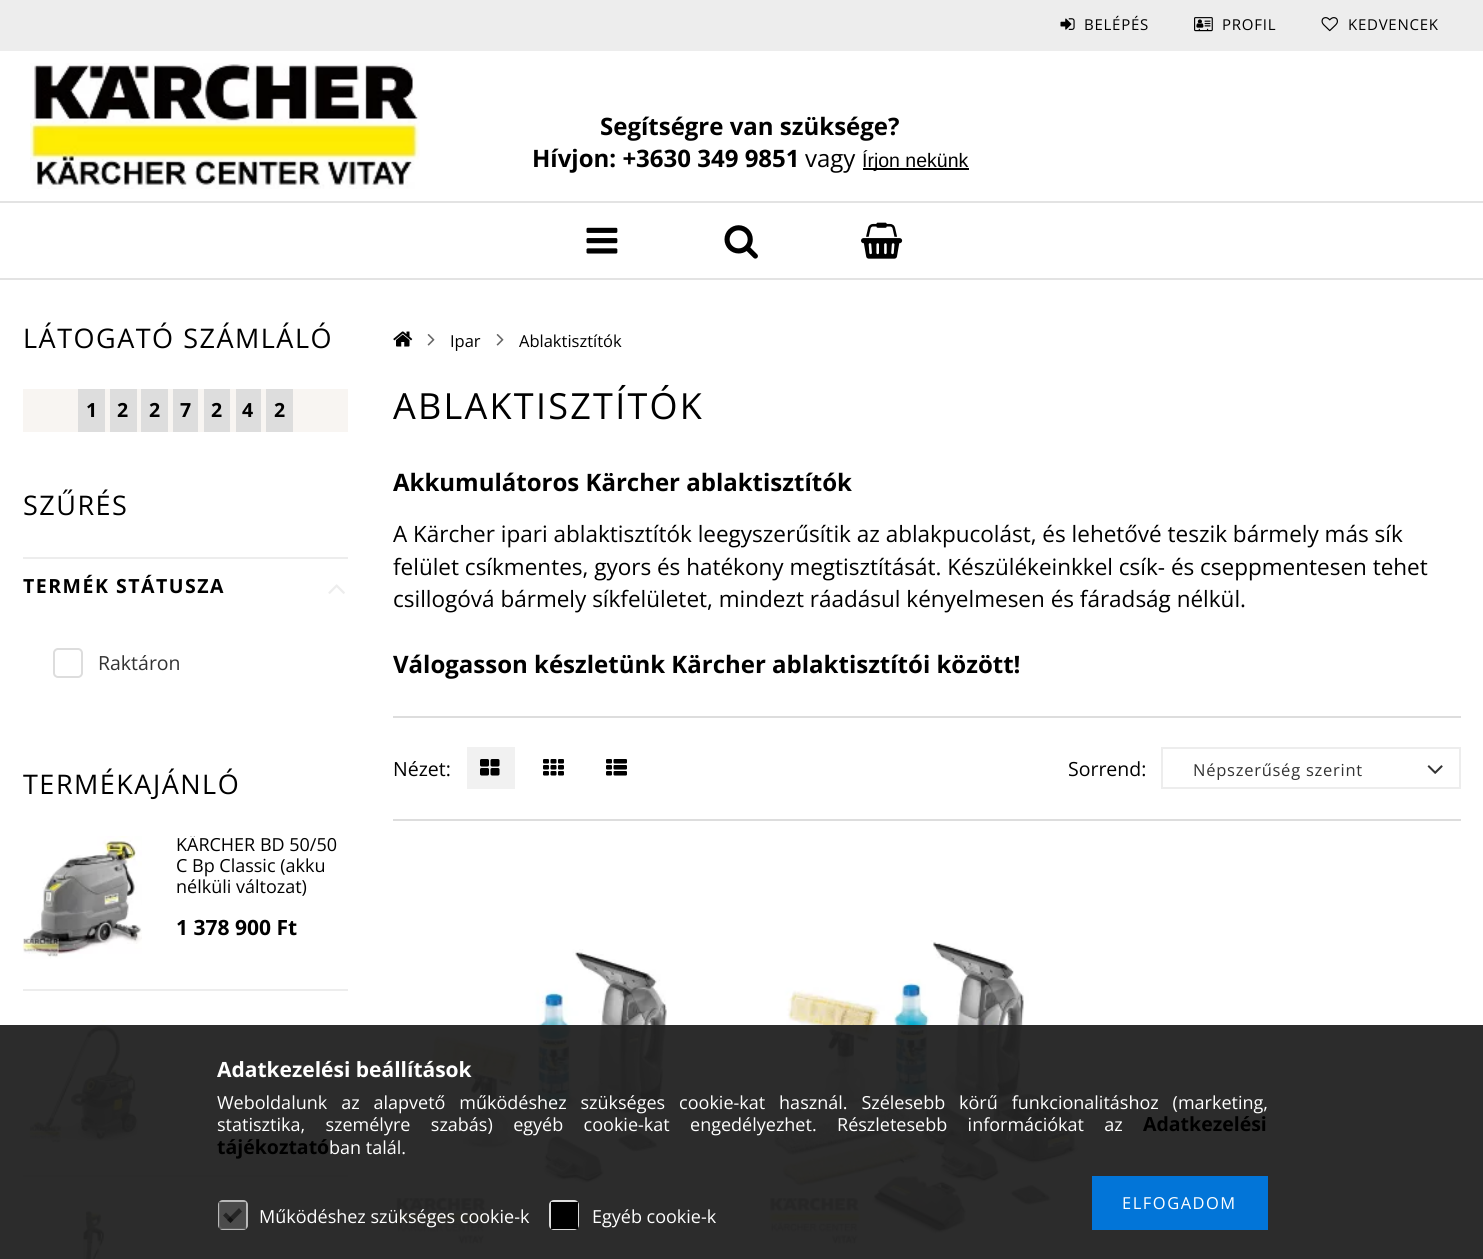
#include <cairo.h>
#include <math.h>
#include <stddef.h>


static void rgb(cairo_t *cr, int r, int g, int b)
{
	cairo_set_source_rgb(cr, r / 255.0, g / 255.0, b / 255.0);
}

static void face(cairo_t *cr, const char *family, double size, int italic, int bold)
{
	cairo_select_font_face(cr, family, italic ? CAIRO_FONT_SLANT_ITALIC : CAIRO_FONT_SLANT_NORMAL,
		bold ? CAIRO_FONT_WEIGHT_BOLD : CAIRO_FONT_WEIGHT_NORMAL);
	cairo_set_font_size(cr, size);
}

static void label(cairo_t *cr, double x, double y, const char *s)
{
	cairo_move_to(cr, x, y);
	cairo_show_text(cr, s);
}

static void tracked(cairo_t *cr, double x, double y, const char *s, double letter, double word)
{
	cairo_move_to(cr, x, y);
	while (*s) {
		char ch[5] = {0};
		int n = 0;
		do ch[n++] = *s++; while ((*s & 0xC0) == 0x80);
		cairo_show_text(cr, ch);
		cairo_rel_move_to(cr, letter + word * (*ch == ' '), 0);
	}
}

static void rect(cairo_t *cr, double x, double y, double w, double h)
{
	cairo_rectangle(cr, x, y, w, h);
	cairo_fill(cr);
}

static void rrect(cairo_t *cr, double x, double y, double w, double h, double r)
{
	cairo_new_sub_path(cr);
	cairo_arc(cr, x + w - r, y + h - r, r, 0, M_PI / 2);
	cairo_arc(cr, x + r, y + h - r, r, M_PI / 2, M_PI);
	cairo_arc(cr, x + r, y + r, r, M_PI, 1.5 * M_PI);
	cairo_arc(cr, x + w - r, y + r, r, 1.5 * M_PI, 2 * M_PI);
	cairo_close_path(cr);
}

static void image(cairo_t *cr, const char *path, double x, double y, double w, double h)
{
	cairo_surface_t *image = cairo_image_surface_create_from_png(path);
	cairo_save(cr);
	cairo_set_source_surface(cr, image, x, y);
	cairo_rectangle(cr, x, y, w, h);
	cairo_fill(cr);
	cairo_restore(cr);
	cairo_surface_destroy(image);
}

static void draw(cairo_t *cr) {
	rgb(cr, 255, 255, 255);
	cairo_paint(cr);
	rgb(cr, 237, 237, 237);
	rect(cr, 0, 0, 1483, 51);
	image(cr, "image0.png", 1060, 18, 15, 12);
	face(cr, "Open Sans", 15, 0, 0);
	rgb(cr, 0, 0, 0);
	tracked(cr, 1084, 30, "BELÉPÉS", 0.75, 0);
	image(cr, "image1.png", 1194, 17, 19, 15);
	tracked(cr, 1222, 30, "PROFIL", 0.75, 0);
	image(cr, "image2.png", 1321, 17, 17, 15);
	tracked(cr, 1348, 30, "KEDVENCEK", 0.75, 0);
	image(cr, "image3.png", 30, 63, 390, 126);
	face(cr, "Open Sans", 24, 0, 1);
	label(cr, 600, 135, "Segítségre van szüksége?");
	label(cr, 532, 167, "Hívjon: +3630 349 9851");
	face(cr, "Open Sans", 24, 0, 0);
	label(cr, 805, 167, "vagy");
	rect(cr, 863, 168, 106, 2);
	face(cr, "Liberation Sans", 19.5, 0, 0);
	label(cr, 862, 167, "Írjon nekünk");
	rgb(cr, 227, 227, 227);
	rect(cr, 0, 201, 1483, 2);
	rect(cr, 0, 278, 1483, 2);
	image(cr, "image4.png", 586, 227, 32, 27);
	image(cr, "image5.png", 724, 225, 34, 34);
	image(cr, "image6.png", 861, 222, 42, 37);
	face(cr, "Open Sans", 27, 0, 0);
	rgb(cr, 0, 0, 0);
	tracked(cr, 23, 348, "LÁTOGATÓ SZÁMLÁLÓ", 1.5, 0);
	rgb(cr, 248, 245, 242);
	rect(cr, 23, 389, 325, 43);
	rgb(cr, 221, 221, 221);
	rect(cr, 78, 389, 27, 43);
	face(cr, "Open Sans", 19.5, 0, 1);
	rgb(cr, 0, 0, 0);
	label(cr, 86, 417, "1");
	rgb(cr, 221, 221, 221);
	rect(cr, 110, 389, 27, 43);
	rgb(cr, 0, 0, 0);
	label(cr, 117, 417, "2");
	rgb(cr, 221, 221, 221);
	rect(cr, 141, 389, 27, 43);
	rgb(cr, 0, 0, 0);
	label(cr, 149, 417, "2");
	rgb(cr, 221, 221, 221);
	rect(cr, 173, 389, 25, 43);
	rgb(cr, 0, 0, 0);
	label(cr, 180, 417, "7");
	rgb(cr, 221, 221, 221);
	rect(cr, 204, 389, 26, 43);
	rgb(cr, 0, 0, 0);
	label(cr, 211, 417, "2");
	rgb(cr, 221, 221, 221);
	rect(cr, 236, 389, 25, 43);
	rgb(cr, 0, 0, 0);
	label(cr, 242, 417, "4");
	rgb(cr, 221, 221, 221);
	rect(cr, 266, 389, 27, 43);
	rgb(cr, 0, 0, 0);
	label(cr, 274, 417, "2");
	face(cr, "Open Sans", 27, 0, 0);
	tracked(cr, 23, 515, "SZŰRÉS", 1.5, 0);
	rgb(cr, 237, 237, 237);
	rect(cr, 23, 557, 325, 2);
	face(cr, "Open Sans", 19.5, 0, 1);
	rgb(cr, 0, 0, 0);
	tracked(cr, 23, 593, "TERMÉK STÁTUSZA", 1.5, 0);
	image(cr, "image7.png", 328, 584, 17, 10);
	rrect(cr, 54, 649, 28, 28, 4);
	rgb(cr, 221, 221, 221);
	cairo_stroke(cr);
	face(cr, "Open Sans", 19.5, 0, 0);
	rgb(cr, 51, 51, 51);
	label(cr, 98, 670, "Raktáron");
	face(cr, "Open Sans", 27, 0, 0);
	rgb(cr, 0, 0, 0);
	tracked(cr, 23, 794, "TERMÉKAJÁNLÓ", 1.5, 0);
	image(cr, "image8.png", 22, 836, 120, 123);
	cairo_save(cr);
	cairo_rectangle(cr, 23, 836, 325, 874);
	cairo_clip(cr);
	face(cr, "Open Sans", 18, 0, 0);
	label(cr, 176, 851, "KÄRCHER BD 50/50");
	cairo_restore(cr);
	face(cr, "Open Sans", 18, 0, 0);
	label(cr, 176, 872, "C Bp Classic (akku");
	label(cr, 176, 893, "nélküli változat)");
	face(cr, "Open Sans", 21, 0, 1);
	label(cr, 176, 935, "1 378 900 Ft");
	rgb(cr, 237, 237, 237);
	rect(cr, 23, 989, 325, 2);
	image(cr, "image9.png", 23, 1020, 116, 125);
	rect(cr, 23, 1175, 325, 2);
	image(cr, "image10.png", 79, 1210, 28, 49);
	image(cr, "image11.png", 393, 331, 20, 16);
	image(cr, "image12.png", 427, 334, 8, 12);
	face(cr, "Open Sans", 16.5, 0, 0);
	rgb(cr, 0, 0, 0);
	label(cr, 450, 347, "Ipar");
	image(cr, "image12.png", 496, 334, 8, 12);
	label(cr, 519, 347, "Ablaktisztítók");
	face(cr, "Open Sans", 36, 0, 0);
	tracked(cr, 393, 419, "ABLAKTISZTÍTÓK", 2.25, 0);
	face(cr, "Open Sans", 24, 0, 1);
	label(cr, 393, 491, "Akkumulátoros Kärcher ablaktisztítók");
	face(cr, "Open Sans", 22.5, 0, 0);
	label(cr, 393, 542, "A Kärcher ipari ablaktisztítók leegyszerűsítik az ablakpucolást, és lehetővé teszik bármely más sík");
	label(cr, 393, 575, "felület csíkmentes, gyors és hatékony megtisztítását. Készülékeinkkel csík- és cseppmentesen tehet");
	label(cr, 393, 607, "csillogóvá bármely síkfelületet, mindezt ráadásul kényelmesen és fáradság nélkül.");
	face(cr, "Open Sans", 24, 0, 1);
	label(cr, 393, 673, "Válogasson készletünk Kärcher ablaktisztítói között!");
	rgb(cr, 221, 221, 221);
	rect(cr, 393, 716, 1068, 2);
	face(cr, "Open Sans", 19.5, 0, 0);
	rgb(cr, 0, 0, 0);
	label(cr, 393, 776, "Nézet:");
	rgb(cr, 241, 241, 241);
	rect(cr, 467, 747, 48, 42);
	image(cr, "image13.png", 480, 759, 20, 17);
	image(cr, "image14.png", 543, 759, 21, 17);
	image(cr, "image15.png", 606, 759, 21, 17);
	rgb(cr, 0, 0, 0);
	label(cr, 1068, 776, "Sorrend:");
	cairo_rectangle(cr, 1162, 748, 298, 40);
	rgb(cr, 237, 237, 237);
	cairo_stroke(cr);
	face(cr, "Open Sans", 16.5, 0, 0);
	rgb(cr, 51, 51, 51);
	tracked(cr, 1193, 776, "Népszerűség szerint", 0.75, 0);
	image(cr, "image16.png", 1427, 765, 16, 9);
	rgb(cr, 221, 221, 221);
	rect(cr, 393, 819, 1068, 2);
	image(cr, "image17.png", 393, 949, 274, 298);
	image(cr, "image18.png", 766, 940, 314, 307);
	cairo_set_source_rgba(cr, 0.133, 0.133, 0.133, 0.95);
	rect(cr, 0, 1025, 1483, 234);
	face(cr, "Open Sans", 21, 0, 1);
	rgb(cr, 255, 255, 255);
	label(cr, 217, 1077, "Adatkezelési beállítások");
	face(cr, "Open Sans", 18, 0, 0);
	tracked(cr, 217, 1109, "Weboldalunk az alapvető működéshez szükséges cookie-kat használ. Szélesebb körű funkcionalitáshoz (marketing,", 0, 9.25);
	tracked(cr, 217, 1131, "statisztika, személyre szabás) egyéb cookie-kat engedélyezhet. Részletesebb információkat az", 0, 15.75);
	face(cr, "Open Sans", 19.5, 0, 1);
	rgb(cr, 0, 0, 0);
	label(cr, 1143, 1131, "Adatkezelési");
	label(cr, 217, 1154, "tájékoztató");
	face(cr, "Open Sans", 18, 0, 0);
	rgb(cr, 255, 255, 255);
	label(cr, 329, 1154, "ban talál.");
	rgb(cr, 2, 117, 216);
	rect(cr, 1092, 1176, 176, 54);
	face(cr, "Open Sans", 16.5, 0, 0);
	rgb(cr, 255, 255, 255);
	tracked(cr, 1122, 1209, "ELFOGADOM", 1.5, 0);
	cairo_set_source_rgba(cr, 1, 1, 1, 0.5);
	rrect(cr, 218, 1200, 30, 30, 5);
	cairo_fill(cr);
	rrect(cr, 219, 1201, 28, 28, 4);
	cairo_set_source_rgba(cr, 0.867, 0.867, 0.867, 0.5);
	cairo_stroke(cr);
	cairo_set_source_rgba(cr, 0, 0, 0, 0.5);
	rect(cr, 219, 1202, 27, 27);
	cairo_new_path(cr);
	cairo_move_to(cr, 227, 1220);
	cairo_line_to(cr, 239, 1208);
	cairo_line_to(cr, 242, 1211.5);
	cairo_line_to(cr, 230.5, 1223);
	cairo_close_path(cr);
	cairo_fill(cr);
	cairo_new_path(cr);
	cairo_move_to(cr, 223, 1215.5);
	cairo_line_to(cr, 226, 1212.5);
	cairo_line_to(cr, 233.5, 1220);
	cairo_line_to(cr, 230.5, 1223);
	cairo_close_path(cr);
	cairo_fill(cr);
	face(cr, "Open Sans", 18, 0, 0);
	rgb(cr, 255, 255, 255);
	label(cr, 259, 1223, "Működéshez szükséges cookie-k");
	rrect(cr, 550, 1201, 28, 28, 4);
	rgb(cr, 221, 221, 221);
	cairo_stroke(cr);
	rgb(cr, 0, 0, 0);
	rect(cr, 551, 1202, 27, 27);
	rgb(cr, 255, 255, 255);
	label(cr, 592, 1223, "Egyéb cookie-k");
}

int main(void) {
	cairo_surface_t *surface = cairo_image_surface_create(CAIRO_FORMAT_RGB24, 1483, 1259);
	cairo_t *cr = cairo_create(surface);
	cairo_font_options_t *options = cairo_font_options_create();
	cairo_font_options_set_hint_metrics(options, CAIRO_HINT_METRICS_OFF);
	cairo_font_options_set_hint_style(options, CAIRO_HINT_STYLE_NONE);
	cairo_set_font_options(cr, options);
	cairo_set_miter_limit(cr, 4);
	draw(cr);
	cairo_surface_write_to_png(surface, "render.png");
	cairo_font_options_destroy(options);
	cairo_destroy(cr);
	cairo_surface_destroy(surface);
	return 0;
}
